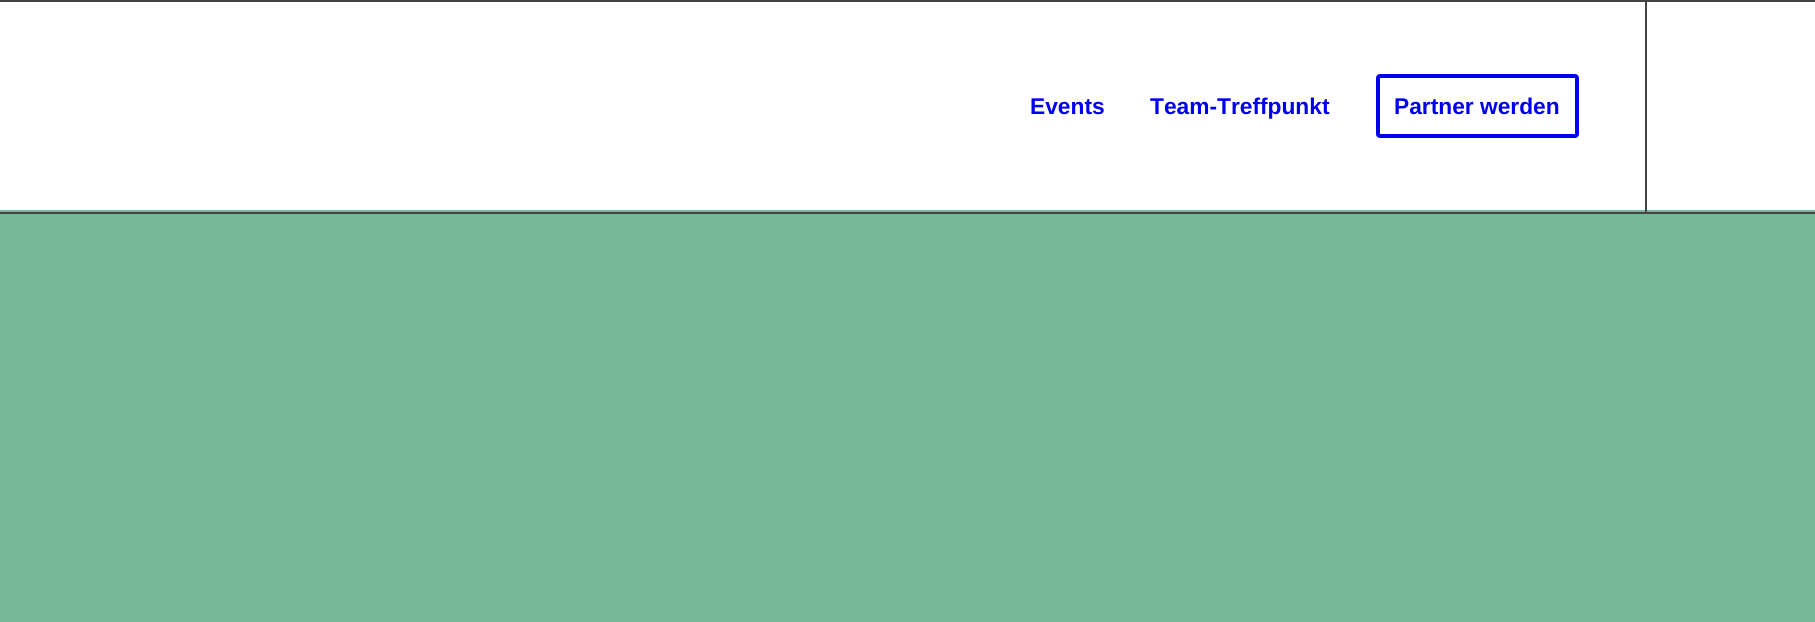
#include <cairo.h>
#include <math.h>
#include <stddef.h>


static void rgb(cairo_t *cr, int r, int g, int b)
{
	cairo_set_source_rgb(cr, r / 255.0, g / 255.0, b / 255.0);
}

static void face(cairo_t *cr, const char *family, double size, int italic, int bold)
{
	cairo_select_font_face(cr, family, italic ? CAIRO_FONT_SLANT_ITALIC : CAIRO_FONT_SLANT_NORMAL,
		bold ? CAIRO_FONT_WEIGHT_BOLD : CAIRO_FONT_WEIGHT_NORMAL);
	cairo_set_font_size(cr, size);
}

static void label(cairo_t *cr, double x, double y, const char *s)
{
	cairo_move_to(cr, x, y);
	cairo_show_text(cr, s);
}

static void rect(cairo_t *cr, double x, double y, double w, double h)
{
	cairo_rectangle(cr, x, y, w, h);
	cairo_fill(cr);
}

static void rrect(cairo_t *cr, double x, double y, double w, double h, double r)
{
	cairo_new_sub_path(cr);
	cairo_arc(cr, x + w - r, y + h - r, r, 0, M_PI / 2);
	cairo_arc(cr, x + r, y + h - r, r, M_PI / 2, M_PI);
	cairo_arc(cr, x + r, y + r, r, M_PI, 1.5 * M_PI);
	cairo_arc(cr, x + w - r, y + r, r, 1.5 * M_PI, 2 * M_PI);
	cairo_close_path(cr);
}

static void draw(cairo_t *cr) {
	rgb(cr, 255, 255, 255);
	cairo_paint(cr);
	rgb(cr, 68, 68, 68);
	rect(cr, 0, 0, 1815, 2);
	rgb(cr, 121, 183, 153);
	rect(cr, 0, 210, 1815, 412);
	rgb(cr, 68, 68, 68);
	rect(cr, 0, 212, 1815, 2);
	rect(cr, 1645, 2, 2, 210);
	face(cr, "Liberation Sans", 22.75, 0, 1);
	rgb(cr, 0, 0, 238);
	label(cr, 1030, 114, "Events");
	label(cr, 1150, 114, "Team-Treffpunkt");
	rrect(cr, 1378, 76, 199, 60, 2);
	cairo_set_line_width(cr, 4);
	cairo_stroke(cr);
	label(cr, 1394, 114, "Partner werden");
}

int main(void) {
	cairo_surface_t *surface = cairo_image_surface_create(CAIRO_FORMAT_RGB24, 1815, 622);
	cairo_t *cr = cairo_create(surface);
	cairo_font_options_t *options = cairo_font_options_create();
	cairo_font_options_set_hint_metrics(options, CAIRO_HINT_METRICS_OFF);
	cairo_font_options_set_hint_style(options, CAIRO_HINT_STYLE_NONE);
	cairo_set_font_options(cr, options);
	cairo_set_miter_limit(cr, 4);
	draw(cr);
	cairo_surface_write_to_png(surface, "render.png");
	cairo_font_options_destroy(options);
	cairo_destroy(cr);
	cairo_surface_destroy(surface);
	return 0;
}
